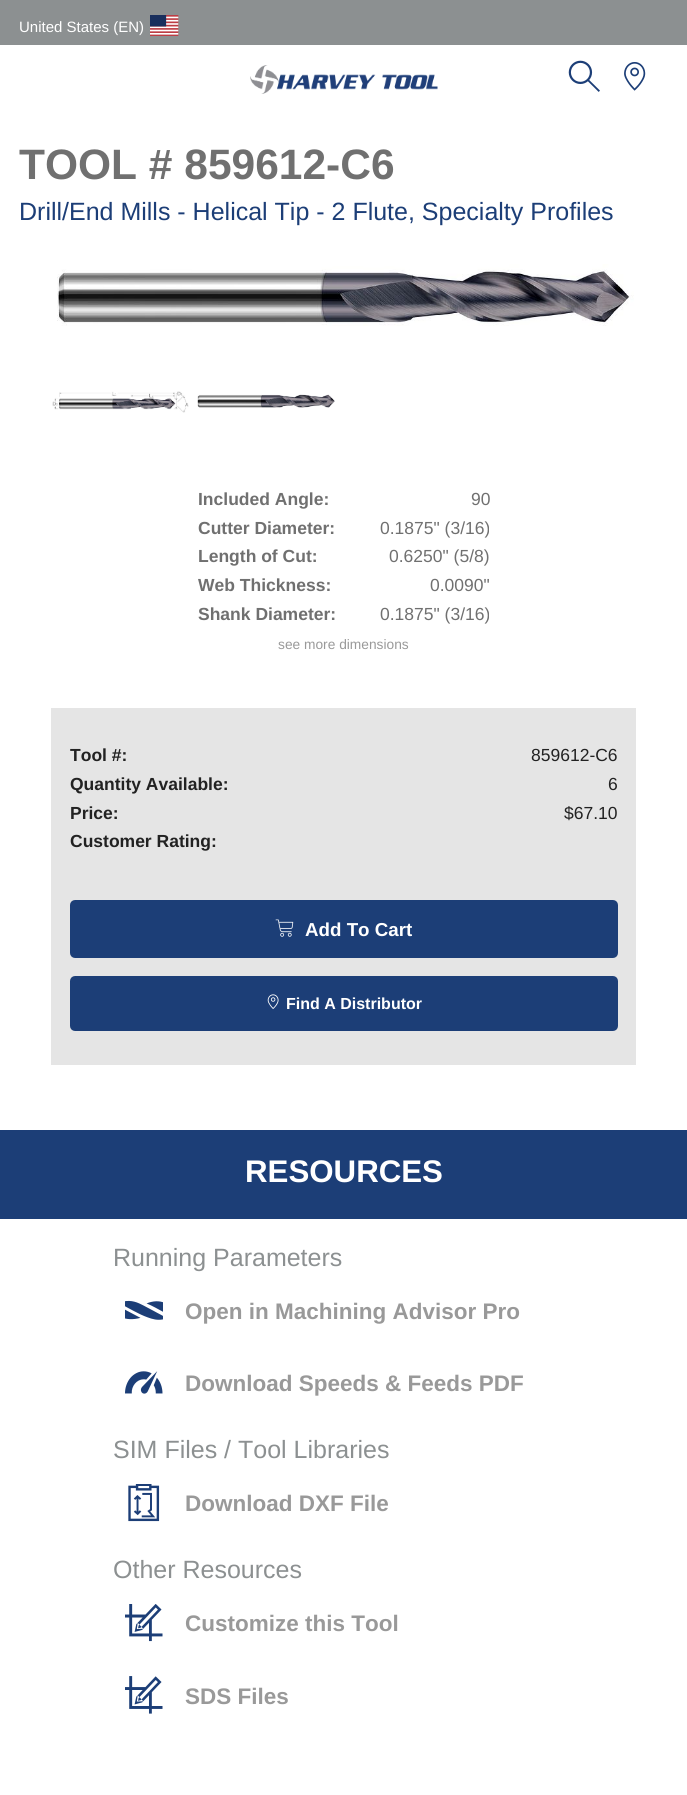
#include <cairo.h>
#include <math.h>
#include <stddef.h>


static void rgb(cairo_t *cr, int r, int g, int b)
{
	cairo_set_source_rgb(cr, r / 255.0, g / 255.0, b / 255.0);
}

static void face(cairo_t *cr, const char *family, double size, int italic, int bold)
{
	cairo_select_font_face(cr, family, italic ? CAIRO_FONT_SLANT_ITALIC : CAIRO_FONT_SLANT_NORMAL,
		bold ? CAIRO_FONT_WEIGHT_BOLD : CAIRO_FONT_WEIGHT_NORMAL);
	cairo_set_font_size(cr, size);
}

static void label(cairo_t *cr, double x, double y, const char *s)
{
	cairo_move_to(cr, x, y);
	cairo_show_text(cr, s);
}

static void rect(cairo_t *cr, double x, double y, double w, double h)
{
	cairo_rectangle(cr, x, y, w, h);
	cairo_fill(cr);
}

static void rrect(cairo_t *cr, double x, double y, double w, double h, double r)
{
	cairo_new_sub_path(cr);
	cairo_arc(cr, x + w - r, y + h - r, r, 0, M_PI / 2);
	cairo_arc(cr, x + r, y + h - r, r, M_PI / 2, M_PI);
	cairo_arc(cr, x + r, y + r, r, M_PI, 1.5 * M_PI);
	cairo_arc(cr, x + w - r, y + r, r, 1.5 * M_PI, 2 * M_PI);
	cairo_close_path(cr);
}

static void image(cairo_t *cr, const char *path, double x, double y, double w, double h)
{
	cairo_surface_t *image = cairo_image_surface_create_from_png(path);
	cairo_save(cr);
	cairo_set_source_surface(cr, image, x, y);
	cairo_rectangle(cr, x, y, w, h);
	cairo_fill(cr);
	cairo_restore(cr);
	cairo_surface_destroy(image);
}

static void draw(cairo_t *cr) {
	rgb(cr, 255, 255, 255);
	cairo_paint(cr);
	rgb(cr, 140, 144, 145);
	rect(cr, 0, 0, 687, 45);
	face(cr, "Liberation Sans", 15, 0, 0);
	rgb(cr, 255, 255, 255);
	label(cr, 19, 32, "United States (EN)");
	image(cr, "image0.png", 150, 15, 29, 21);
	image(cr, "image1.png", 250, 65, 188, 29);
	image(cr, "image2.png", 568, 60, 32, 32);
	image(cr, "image3.png", 624, 62, 22, 29);
	face(cr, "Liberation Sans", 42.5, 0, 1);
	rgb(cr, 112, 112, 112);
	label(cr, 19, 179, "TOOL # 859612-C6");
	face(cr, "Liberation Sans", 25, 0, 0);
	rgb(cr, 28, 62, 119);
	label(cr, 19, 220, "Drill/End Mills - Helical Tip - 2 Flute, Specialty Profiles");
	image(cr, "image4.png", 57, 264, 577, 62);
	image(cr, "image5.png", 52, 391, 137, 22);
	image(cr, "image6.png", 197, 394, 138, 14);
	face(cr, "Liberation Sans", 17.5, 0, 1);
	rgb(cr, 112, 112, 112);
	label(cr, 198, 505, "Included Angle:");
	face(cr, "Liberation Sans", 17.5, 0, 0);
	label(cr, 471, 505, "90");
	face(cr, "Liberation Sans", 17.5, 0, 1);
	label(cr, 198, 534, "Cutter Diameter:");
	face(cr, "Liberation Sans", 17.5, 0, 0);
	label(cr, 380, 534, "0.1875\" (3/16)");
	face(cr, "Liberation Sans", 17.5, 0, 1);
	label(cr, 198, 562, "Length of Cut:");
	face(cr, "Liberation Sans", 17.5, 0, 0);
	label(cr, 389, 562, "0.6250\" (5/8)");
	face(cr, "Liberation Sans", 17.5, 0, 1);
	label(cr, 198, 591, "Web Thickness:");
	face(cr, "Liberation Sans", 17.5, 0, 0);
	label(cr, 430, 591, "0.0090\"");
	face(cr, "Liberation Sans", 17.5, 0, 1);
	label(cr, 198, 620, "Shank Diameter:");
	face(cr, "Liberation Sans", 17.5, 0, 0);
	label(cr, 380, 620, "0.1875\" (3/16)");
	face(cr, "Liberation Sans", 13.75, 0, 0);
	rgb(cr, 153, 153, 153);
	label(cr, 278, 649, "see more dimensions");
	rgb(cr, 229, 229, 229);
	rect(cr, 51, 708, 585, 357);
	face(cr, "Liberation Sans", 17.5, 0, 1);
	rgb(cr, 34, 34, 34);
	label(cr, 70, 761, "Tool #:");
	face(cr, "Liberation Sans", 17.5, 0, 0);
	label(cr, 531, 761, "859612-C6");
	face(cr, "Liberation Sans", 17.5, 0, 1);
	label(cr, 70, 790, "Quantity Available:");
	face(cr, "Liberation Sans", 17.5, 0, 0);
	label(cr, 608, 790, "6");
	face(cr, "Liberation Sans", 17.5, 0, 1);
	label(cr, 70, 819, "Price:");
	face(cr, "Liberation Sans", 17.5, 0, 0);
	label(cr, 564, 819, "$67.10");
	face(cr, "Liberation Sans", 17.5, 0, 1);
	label(cr, 70, 847, "Customer Rating:");
	rgb(cr, 28, 62, 119);
	rrect(cr, 71.5, 901.5, 545, 55, 3.5);
	cairo_fill_preserve(cr);
	cairo_set_line_width(cr, 3);
	cairo_stroke(cr);
	image(cr, "image7.png", 275, 919, 19, 18);
	face(cr, "Liberation Sans", 18.75, 0, 1);
	rgb(cr, 255, 255, 255);
	label(cr, 305, 936, "Add To Cart");
	rgb(cr, 28, 62, 119);
	rrect(cr, 71.5, 977.5, 545, 52, 3.5);
	cairo_fill_preserve(cr);
	cairo_stroke(cr);
	image(cr, "image8.png", 267, 994, 12, 15);
	face(cr, "Liberation Sans", 16, 0, 1);
	rgb(cr, 255, 255, 255);
	label(cr, 286, 1009, "Find A Distributor");
	rgb(cr, 28, 62, 119);
	rect(cr, 0, 1130, 687, 89);
	face(cr, "Liberation Sans", 31.25, 0, 1);
	rgb(cr, 255, 255, 255);
	label(cr, 245, 1182, "RESOURCES");
	face(cr, "Liberation Sans", 25, 0, 0);
	rgb(cr, 140, 144, 145);
	label(cr, 113, 1266, "Running Parameters");
	image(cr, "image9.png", 125, 1300, 38, 20);
	face(cr, "Liberation Sans", 22.5, 0, 1);
	rgb(cr, 153, 153, 153);
	label(cr, 185, 1319, "Open in Machining Advisor Pro");
	image(cr, "image10.png", 125, 1371, 38, 23);
	label(cr, 185, 1391, "Download Speeds & Feeds PDF");
	face(cr, "Liberation Sans", 25, 0, 0);
	rgb(cr, 140, 144, 145);
	label(cr, 113, 1458, "SIM Files / Tool Libraries");
	image(cr, "image11.png", 128, 1484, 32, 38);
	face(cr, "Liberation Sans", 22.5, 0, 1);
	rgb(cr, 153, 153, 153);
	label(cr, 185, 1511, "Download DXF File");
	face(cr, "Liberation Sans", 25, 0, 0);
	rgb(cr, 140, 144, 145);
	label(cr, 113, 1578, "Other Resources");
	image(cr, "image12.png", 125, 1604, 38, 38);
	face(cr, "Liberation Sans", 22.5, 0, 1);
	rgb(cr, 153, 153, 153);
	label(cr, 185, 1631, "Customize this Tool");
	image(cr, "image13.png", 125, 1676, 38, 38);
	label(cr, 185, 1704, "SDS Files");
}

int main(void) {
	cairo_surface_t *surface = cairo_image_surface_create(CAIRO_FORMAT_RGB24, 687, 1795);
	cairo_t *cr = cairo_create(surface);
	cairo_font_options_t *options = cairo_font_options_create();
	cairo_font_options_set_hint_metrics(options, CAIRO_HINT_METRICS_OFF);
	cairo_font_options_set_hint_style(options, CAIRO_HINT_STYLE_NONE);
	cairo_set_font_options(cr, options);
	cairo_set_miter_limit(cr, 4);
	draw(cr);
	cairo_surface_write_to_png(surface, "render.png");
	cairo_font_options_destroy(options);
	cairo_destroy(cr);
	cairo_surface_destroy(surface);
	return 0;
}
